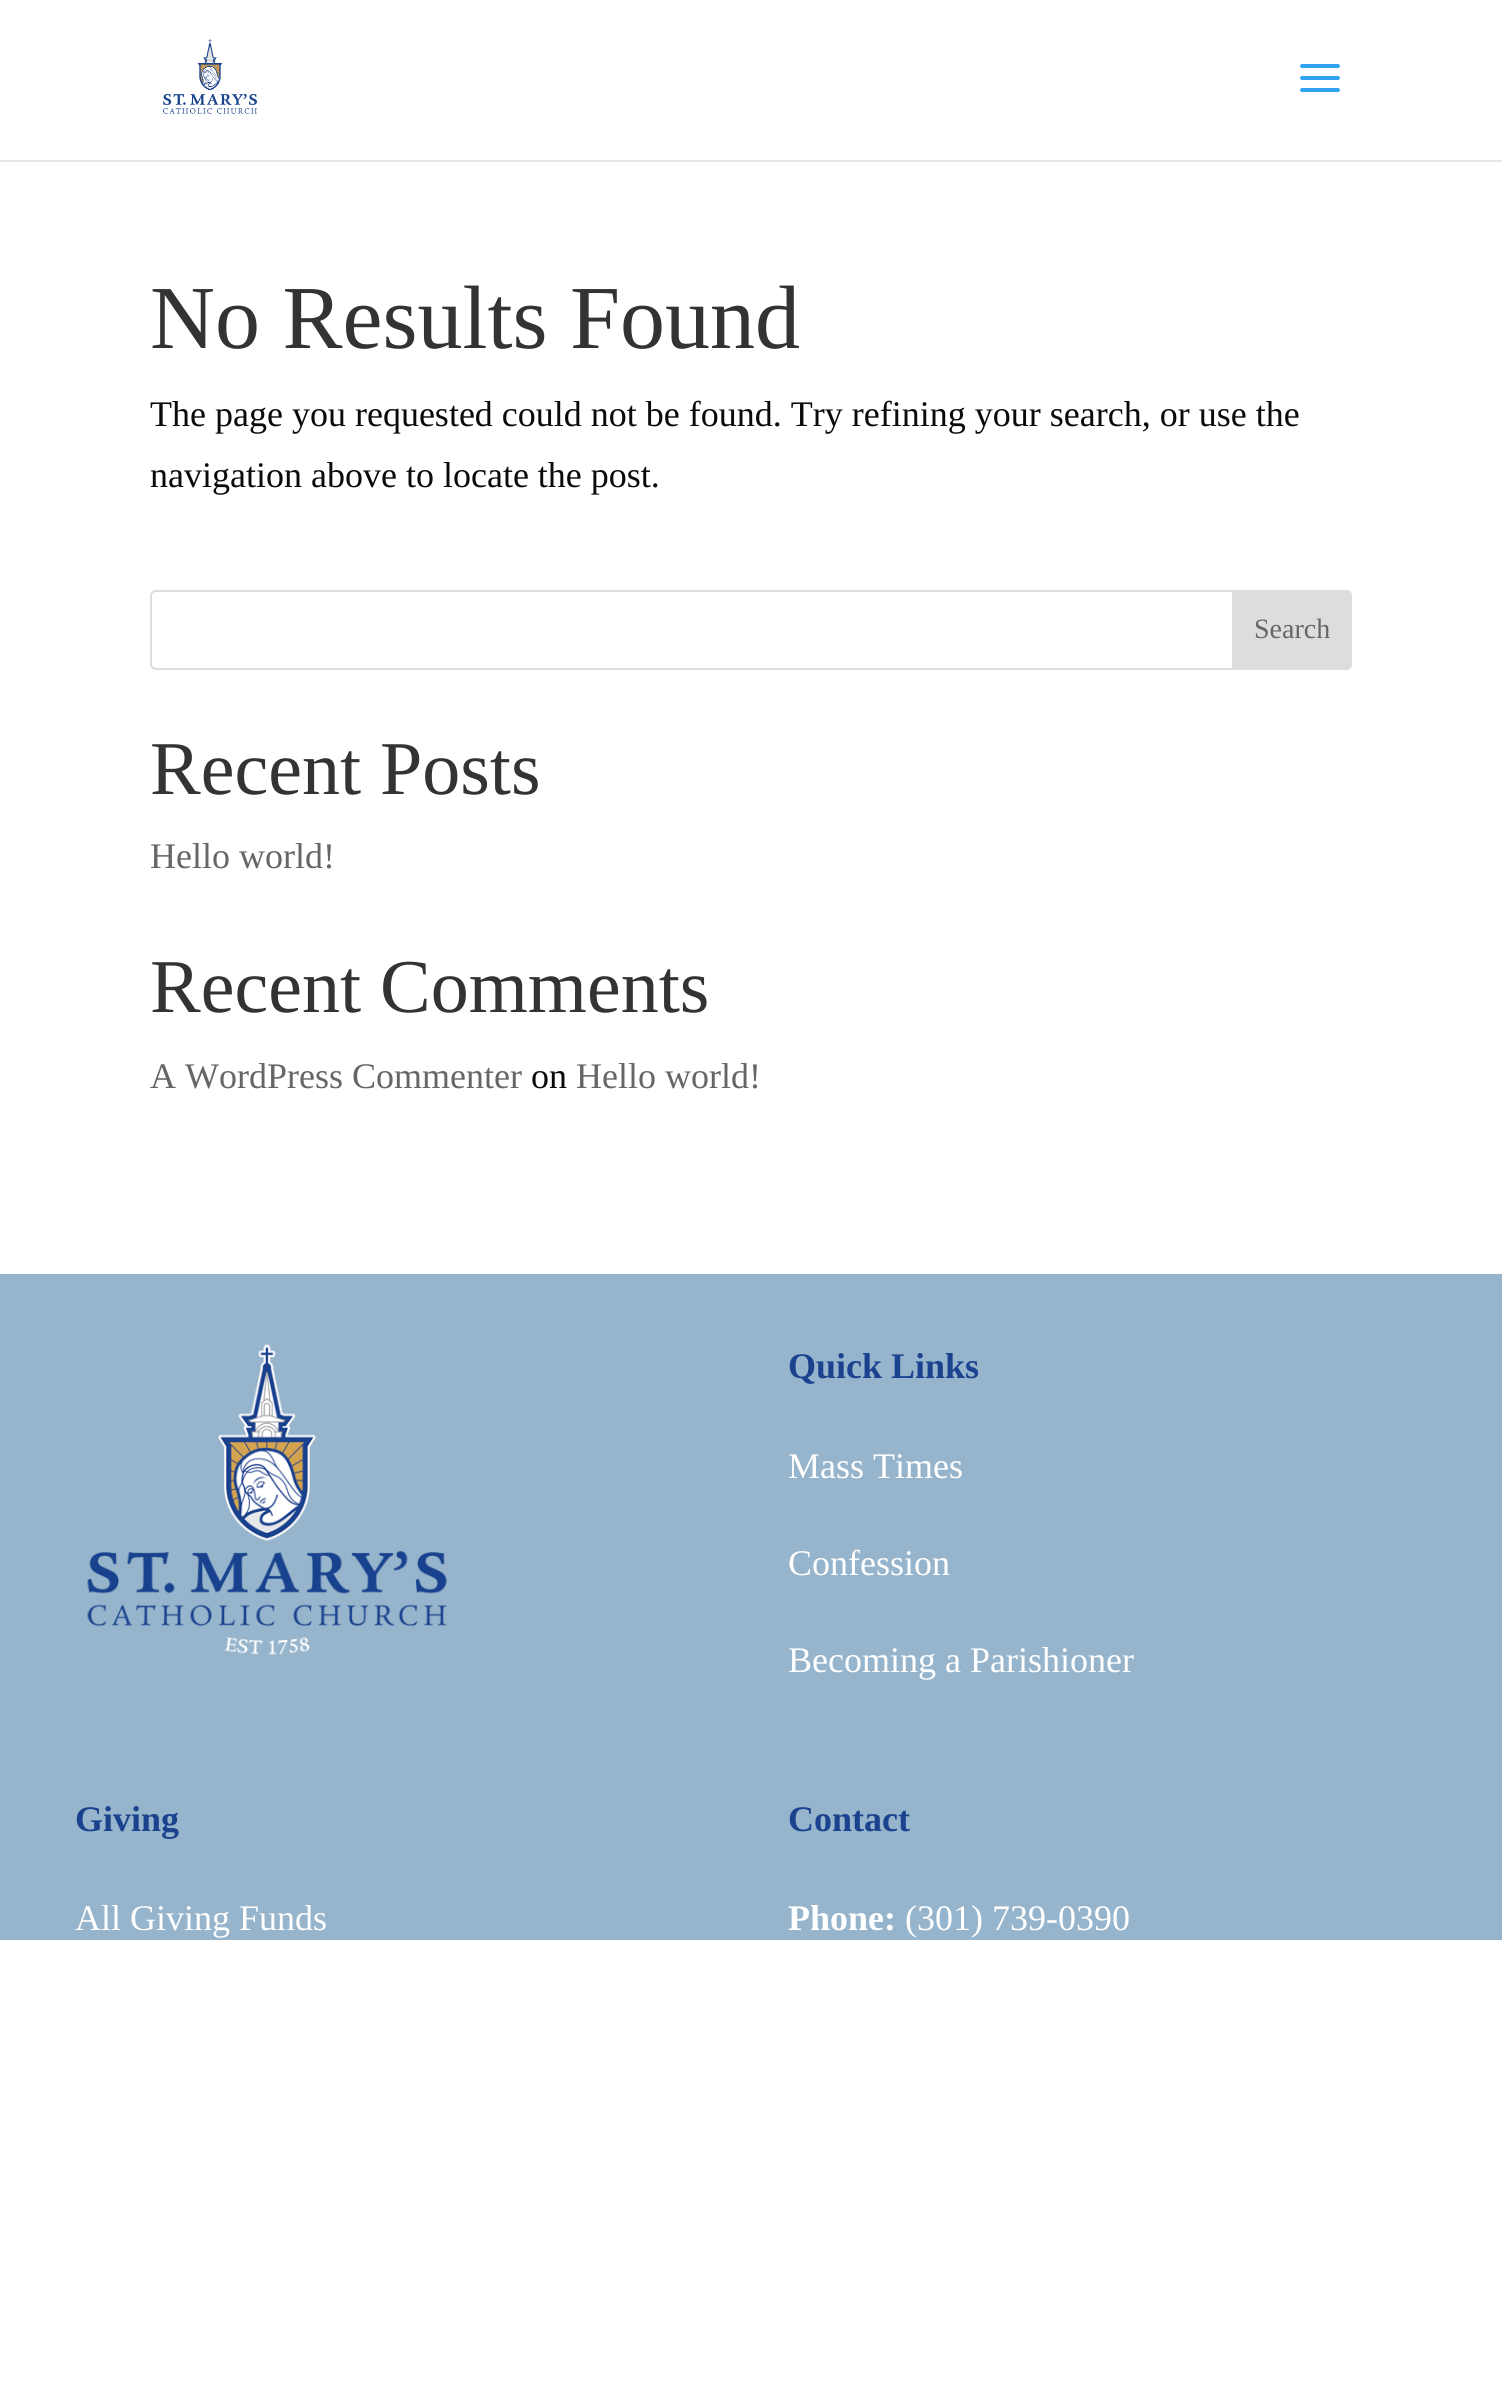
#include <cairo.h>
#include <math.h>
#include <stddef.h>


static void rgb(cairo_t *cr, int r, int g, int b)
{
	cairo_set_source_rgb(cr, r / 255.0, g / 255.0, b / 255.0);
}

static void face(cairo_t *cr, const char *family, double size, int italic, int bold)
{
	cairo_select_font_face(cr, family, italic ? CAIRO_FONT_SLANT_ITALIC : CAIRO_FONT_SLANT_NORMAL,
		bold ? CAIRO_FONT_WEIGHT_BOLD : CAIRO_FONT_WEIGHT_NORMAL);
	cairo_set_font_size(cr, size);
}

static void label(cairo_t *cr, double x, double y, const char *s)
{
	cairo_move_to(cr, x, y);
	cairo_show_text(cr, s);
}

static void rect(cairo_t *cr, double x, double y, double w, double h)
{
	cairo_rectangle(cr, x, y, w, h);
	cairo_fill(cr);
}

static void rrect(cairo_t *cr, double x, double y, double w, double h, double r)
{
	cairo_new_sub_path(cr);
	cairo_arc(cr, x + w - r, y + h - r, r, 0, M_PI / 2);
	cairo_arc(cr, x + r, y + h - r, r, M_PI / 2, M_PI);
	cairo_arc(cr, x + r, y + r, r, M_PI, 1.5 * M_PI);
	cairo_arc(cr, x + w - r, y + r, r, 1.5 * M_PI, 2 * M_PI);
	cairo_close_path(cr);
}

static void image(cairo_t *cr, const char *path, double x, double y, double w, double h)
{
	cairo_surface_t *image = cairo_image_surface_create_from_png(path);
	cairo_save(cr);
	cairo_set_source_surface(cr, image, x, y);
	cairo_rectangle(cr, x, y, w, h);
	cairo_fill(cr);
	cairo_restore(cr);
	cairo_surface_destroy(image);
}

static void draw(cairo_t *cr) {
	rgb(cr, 255, 255, 255);
	cairo_paint(cr);
	rgb(cr, 230, 230, 230);
	rect(cr, 0, 160, 1502, 2);
	image(cr, "image0.png", 163, 39, 94, 75);
	image(cr, "image1.png", 1300, 64, 40, 28);
	face(cr, "Liberation Serif", 90, 0, 0);
	rgb(cr, 51, 51, 51);
	label(cr, 150, 348, "No Results Found");
	face(cr, "Liberation Serif", 36, 0, 0);
	rgb(cr, 10, 10, 10);
	label(cr, 150, 426, "The page you requested could not be found. Try refining your search, or use the");
	label(cr, 150, 487, "navigation above to locate the post.");
	rrect(cr, 151, 591, 1200, 78, 5);
	rgb(cr, 221, 221, 221);
	cairo_stroke(cr);
	cairo_new_path(cr);
	cairo_move_to(cr, 1233, 591);
	cairo_line_to(cr, 1346, 591);
	cairo_curve_to(cr, 1349, 591, 1351, 593, 1351, 596);
	cairo_line_to(cr, 1351, 664);
	cairo_curve_to(cr, 1351, 667, 1349, 669, 1346, 669);
	cairo_line_to(cr, 1233, 669);
	cairo_close_path(cr);
	cairo_fill_preserve(cr);
	cairo_stroke(cr);
	face(cr, "Liberation Serif", 28, 0, 0);
	rgb(cr, 102, 102, 102);
	label(cr, 1254, 638, "Search");
	face(cr, "Liberation Serif", 76, 0, 0);
	rgb(cr, 51, 51, 51);
	label(cr, 150, 794, "Recent Posts");
	face(cr, "Liberation Serif", 36, 0, 0);
	rgb(cr, 102, 102, 102);
	label(cr, 150, 868, "Hello world!");
	face(cr, "Liberation Serif", 76, 0, 0);
	rgb(cr, 51, 51, 51);
	label(cr, 150, 1012, "Recent Comments");
	face(cr, "Liberation Serif", 36, 0, 0);
	rgb(cr, 102, 102, 102);
	label(cr, 150, 1088, "A WordPress Commenter");
	rgb(cr, 10, 10, 10);
	label(cr, 531, 1088, "on");
	rgb(cr, 102, 102, 102);
	label(cr, 576, 1088, "Hello world!");
	rgb(cr, 150, 180, 203);
	rect(cr, 0, 1274, 1502, 666);
	image(cr, "image2.png", 87, 1344, 360, 311);
	face(cr, "Liberation Serif", 36, 0, 1);
	rgb(cr, 26, 66, 142);
	label(cr, 788, 1378, "Quick Links");
	face(cr, "Liberation Serif", 36, 0, 0);
	rgb(cr, 255, 255, 255);
	label(cr, 788, 1478, "Mass Times");
	label(cr, 788, 1575, "Confession");
	label(cr, 788, 1672, "Becoming a Parishioner");
	face(cr, "Liberation Serif", 36, 0, 1);
	rgb(cr, 26, 66, 142);
	label(cr, 75, 1831, "Giving");
	face(cr, "Liberation Serif", 36, 0, 0);
	rgb(cr, 255, 255, 255);
	label(cr, 75, 1930, "All Giving Funds");
	face(cr, "Liberation Serif", 36, 0, 1);
	rgb(cr, 26, 66, 142);
	label(cr, 788, 1831, "Contact");
	rgb(cr, 255, 255, 255);
	label(cr, 788, 1930, "Phone:");
	face(cr, "Liberation Serif", 36, 0, 0);
	label(cr, 905, 1930, "(301) 739-0390");
}

int main(void) {
	cairo_surface_t *surface = cairo_image_surface_create(CAIRO_FORMAT_RGB24, 1502, 2404);
	cairo_t *cr = cairo_create(surface);
	cairo_font_options_t *options = cairo_font_options_create();
	cairo_font_options_set_hint_metrics(options, CAIRO_HINT_METRICS_OFF);
	cairo_font_options_set_hint_style(options, CAIRO_HINT_STYLE_NONE);
	cairo_set_font_options(cr, options);
	cairo_set_miter_limit(cr, 4);
	draw(cr);
	cairo_surface_write_to_png(surface, "render.png");
	cairo_font_options_destroy(options);
	cairo_destroy(cr);
	cairo_surface_destroy(surface);
	return 0;
}
